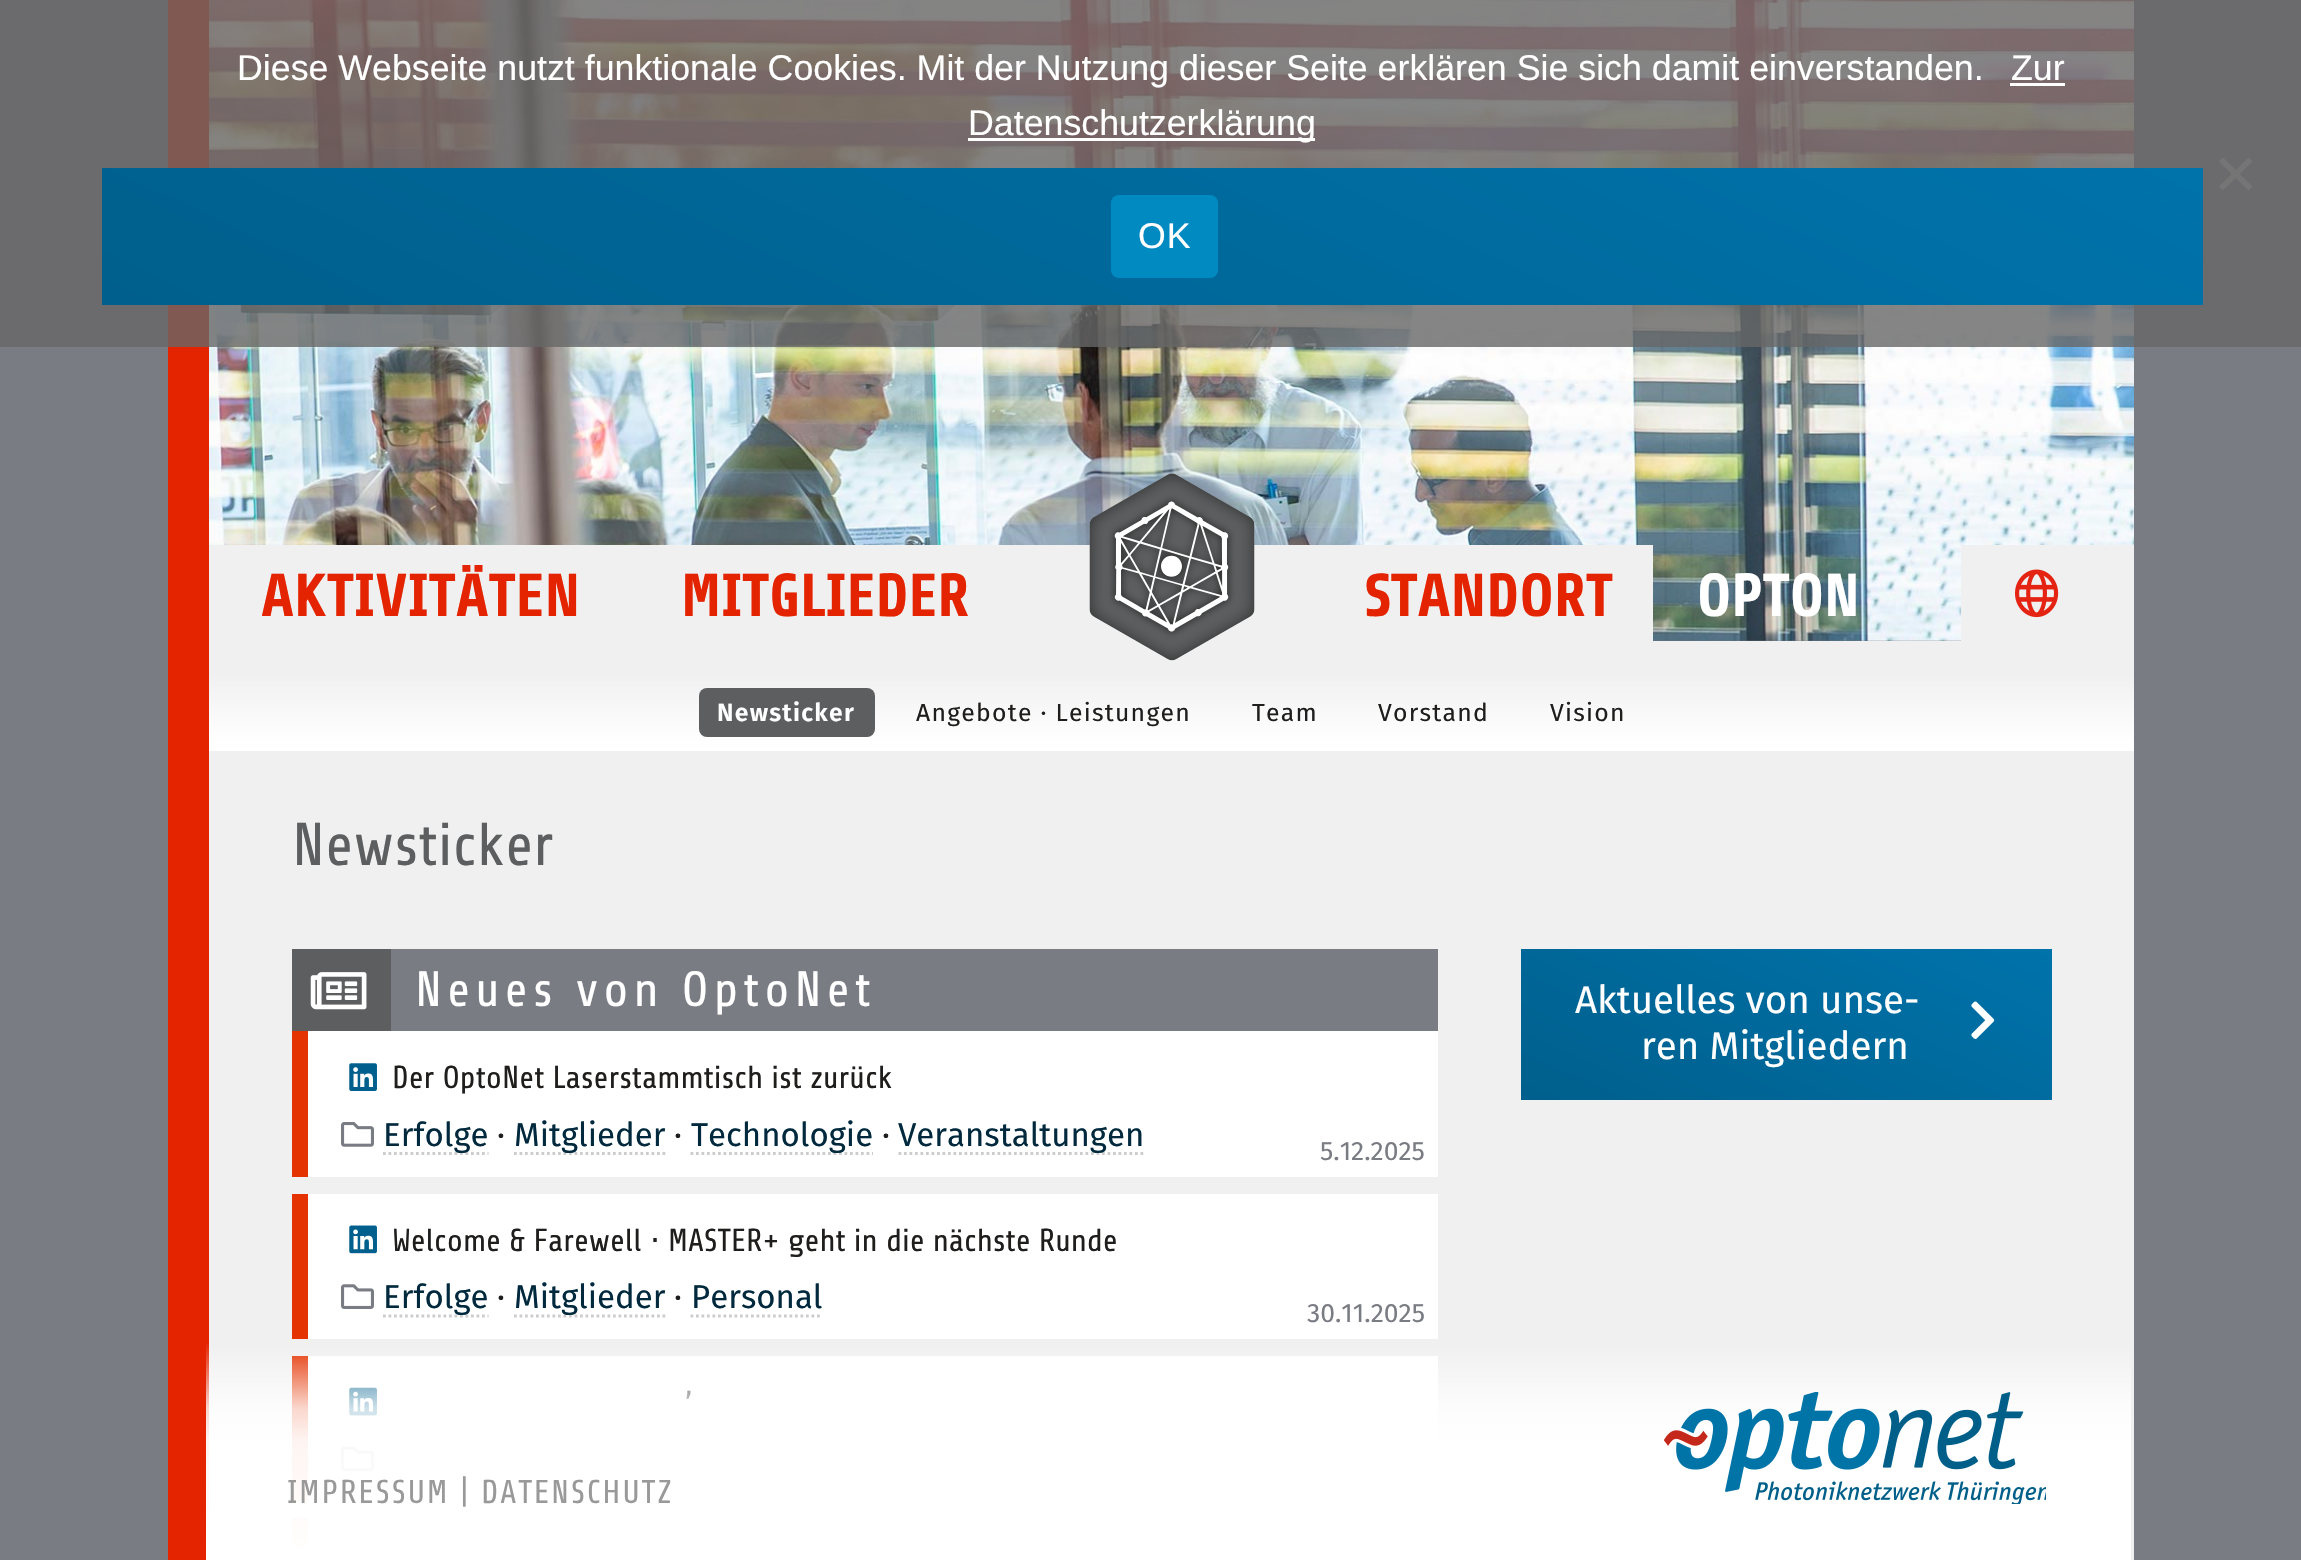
void draw(SkCanvas* canvas) {
    SkPaint paint;
    paint.setAntiAlias(true);
    auto spacedText = [&](const char* s, float x, float y, const SkFont& font, const SkPaint& ink, float letter, float word) {
        std::vector<SkGlyphID> glyphs(font.countText(s, strlen(s), SkTextEncoding::kUTF8));
        std::vector<float> xs(glyphs.size());
        font.textToGlyphs(s, strlen(s), SkTextEncoding::kUTF8, glyphs);
        font.getXPos(glyphs, xs, x);
        float extra = 0;
        for (size_t i = 0; i < glyphs.size(); i++) {
            xs[i] += extra;
            extra += letter + word * (glyphs[i] == font.unicharToGlyph(' '));
        }
        canvas->drawTextBlob(SkTextBlob::MakeFromPosHGlyphs(glyphs, xs, y, font), 0, 0, ink);
    };
    canvas->clear(0xFF797C83);
    paint.setColor(0xFFE42300);
    canvas->drawRect(SkRect::MakeXYWH(168, 0, 41, 1560), paint);
    canvas->drawImageRect(SkImages::DeferredFromEncodedData(SkData::MakeFromFileName("img1.png")), SkRect::MakeXYWH(209, 0, 1925, 641), SkSamplingOptions());
    paint.setColor(0xCC666666);
    canvas->drawRect(SkRect::MakeXYWH(0, 0, 2301, 347), paint);
    SkFont font1(fontMgr->matchFamilyStyle("Liberation Sans", SkFontStyle::Normal()), 35.75f);
    font1.setSubpixel(true);
    paint.setColor(0xFFFFFFFF);
    canvas->drawString("Diese Webseite nutzt funktionale Cookies. Mit der Nutzung dieser Seite erklären Sie sich damit einverstanden.", 237, 80, font1, paint);
    canvas->drawString("Zur", 2011, 80, font1, paint);
    canvas->drawRect(SkRect::MakeXYWH(2010, 83, 55, 3), paint);
    canvas->drawRect(SkRect::MakeXYWH(968, 138, 347, 3), paint);
    canvas->drawString("Datenschutzerklärung", 968, 135, font1, paint);
    paint.setColor(0xFF757576);
    canvas->drawPath(SkPathBuilder().moveTo(2248.5f, 157.5f).lineTo(2252.5f, 161.5f).lineTo(2223, 190.5f).lineTo(2219, 186.5f).close().detach(), paint);
    canvas->drawPath(SkPathBuilder().moveTo(2219, 161.5f).lineTo(2223, 157.5f).lineTo(2252.5f, 186.5f).lineTo(2248.5f, 190.5f).close().detach(), paint);
    {
        const SkColor colors[] = {0xFF005F8C, 0xFF0073AB};
        const float stops[] = {0, 1};
        const SkPoint ends[] = {{938, 695}, {1366, -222}};
        paint.setShader(SkGradientShader::MakeLinear(ends, colors, stops, 2, SkTileMode::kClamp));
        paint.setAlpha(255);
    }
    canvas->drawRect(SkRect::MakeXYWH(102, 168, 2101, 137), paint);
    paint.setShader(nullptr);
    paint.setColor(0xFF008AC2);
    canvas->drawRoundRect(SkRect::MakeXYWH(1111, 195, 107, 83), 8, 8, paint);
    paint.setColor(0xFFFFFFFF);
    spacedText("OK", 1138, 248, font1, paint, 1, 0);
    paint.setColor(0xFFF0F0F0);
    canvas->drawRect(SkRect::MakeXYWH(209, 545, 1444, 96), paint);
    SkFont font2(fontMgr->matchFamilyStyle("Share", SkFontStyle::Bold()), 60.5f);
    font2.setSubpixel(true);
    paint.setColor(0xFFE42300);
    canvas->drawString("AKTIVITÄTEN", 261, 616, font2, paint);
    canvas->drawString("MITGLIEDER", 681, 616, font2, paint);
    {
        const SkColor colors[] = {0xFFF0F0F0, 0xFFF8F8F8, 0xFFFFFFFF};
        const float stops[] = {0.31f, 0.62f, 0.93f};
        const SkPoint ends[] = {{1172, 641}, {1172, 751}};
        paint.setShader(SkGradientShader::MakeLinear(ends, colors, stops, 3, SkTileMode::kClamp));
        paint.setAlpha(255);
    }
    canvas->drawRect(SkRect::MakeXYWH(209, 641, 1925, 110), paint);
    canvas->drawImageRect(SkImages::DeferredFromEncodedData(SkData::MakeFromFileName("img2.png")), SkRect::MakeXYWH(1089, 473, 166, 188), SkSamplingOptions());
    paint.setShader(nullptr);
    paint.setColor(0xFFE42300);
    canvas->drawString("STANDORT", 1365, 616, font2, paint);
    paint.setColor(0xFFFFFFFF);
    canvas->drawString("OPTON", 1697, 616, font2, paint);
    paint.setColor(0xFFF0F0F0);
    canvas->drawRect(SkRect::MakeXYWH(1961, 545, 173, 96), paint);
    canvas->drawImageRect(SkImages::DeferredFromEncodedData(SkData::MakeFromFileName("img3.png")), SkRect::MakeXYWH(2015, 569, 44, 49), SkSamplingOptions());
    paint.setColor(0xFF5D5E5F);
    canvas->drawRoundRect(SkRect::MakeXYWH(699, 688, 176, 49), 8, 8, paint);
    SkFont font3(fontMgr->matchFamilyStyle("Fira Sans", SkFontStyle(600, SkFontStyle::kNormal_Width, SkFontStyle::kUpright_Slant)), 24.75f);
    font3.setSubpixel(true);
    paint.setColor(0xFFFFFFFF);
    spacedText("Newsticker", 717, 721, font3, paint, 1.25f, 0);
    SkFont font4(fontMgr->matchFamilyStyle("Fira Sans", SkFontStyle::Normal()), 24.75f);
    font4.setSubpixel(true);
    paint.setColor(0xFF1F1E1D);
    spacedText("Angebote · Leistungen", 916, 721, font4, paint, 1.25f, 0);
    spacedText("Team", 1252, 721, font4, paint, 1.25f, 0);
    spacedText("Vorstand", 1378, 721, font4, paint, 1.25f, 0);
    spacedText("Vision", 1550, 721, font4, paint, 1.25f, 0);
    paint.setColor(0xFFF0F0F0);
    canvas->drawRect(SkRect::MakeXYWH(209, 751, 1925, 809), paint);
    SkFont font5(fontMgr->matchFamilyStyle("Share", SkFontStyle::Normal()), 60.5f);
    font5.setSubpixel(true);
    paint.setColor(0xFF5D5E5F);
    canvas->drawString("Newsticker", 292, 865, font5, paint);
    paint.setColor(0xFF797C83);
    canvas->drawRect(SkRect::MakeXYWH(391, 949, 1047, 82), paint);
    paint.setColor(0xFF5D5E5F);
    canvas->drawRect(SkRect::MakeXYWH(292, 949, 99, 82), paint);
    canvas->drawImageRect(SkImages::DeferredFromEncodedData(SkData::MakeFromFileName("img4.png")), SkRect::MakeXYWH(310, 972, 57, 38), SkSamplingOptions());
    SkFont font6(fontMgr->matchFamilyStyle("Share", SkFontStyle::Normal()), 49.5f);
    font6.setSubpixel(true);
    paint.setColor(0xFFFFFFFF);
    spacedText("Neues von OptoNet", 415, 1006, font6, paint, 5, 0);
    canvas->drawRect(SkRect::MakeXYWH(308, 1031, 1130, 146), paint);
    paint.setColor(0xFFE43200);
    canvas->drawRect(SkRect::MakeXYWH(292, 1031, 16, 146), paint);
    canvas->drawImageRect(SkImages::DeferredFromEncodedData(SkData::MakeFromFileName("img5.png")), SkRect::MakeXYWH(349, 1063, 28, 28), SkSamplingOptions());
    SkFont font7(fontMgr->matchFamilyStyle("Share", SkFontStyle::Normal()), 31.7f);
    font7.setSubpixel(true);
    paint.setColor(0xFF1F1E1D);
    canvas->drawString("Der OptoNet Laserstammtisch ist zurück", 392, 1088, font7, paint);
    canvas->drawImageRect(SkImages::DeferredFromEncodedData(SkData::MakeFromFileName("img6.png")), SkRect::MakeXYWH(341, 1122, 33, 25), SkSamplingOptions());
    paint.setStyle(SkPaint::kStroke_Style);
    paint.setStrokeWidth(2.8f);
    paint.setColor(0xFFCCCCCC);
    paint.setPathEffect(SkDashPathEffect::Make({{2.75f, 2.75f}}, 0));
    canvas->drawPath(SkPathBuilder().moveTo(383, 1153.5f).lineTo(488.5f, 1153.5f).detach(), paint);
    paint.setPathEffect(nullptr);
    SkFont font8(fontMgr->matchFamilyStyle("Fira Sans", SkFontStyle::Normal()), 33);
    font8.setSubpixel(true);
    paint.setStyle(SkPaint::kFill_Style);
    paint.setColor(0xFF00293D);
    canvas->drawString("Erfolge", 383, 1146, font8, paint);
    paint.setColor(0xFF1F1E1D);
    canvas->drawString("·", 497, 1146, font8, paint);
    paint.setStyle(SkPaint::kStroke_Style);
    paint.setColor(0xFFCCCCCC);
    paint.setPathEffect(SkDashPathEffect::Make({{2.75f, 2.75f}}, 0));
    canvas->drawPath(SkPathBuilder().moveTo(514, 1153.5f).lineTo(665.5f, 1153.5f).detach(), paint);
    paint.setPathEffect(nullptr);
    paint.setStyle(SkPaint::kFill_Style);
    paint.setColor(0xFF00293D);
    canvas->drawString("Mitglieder", 514, 1146, font8, paint);
    paint.setColor(0xFF1F1E1D);
    canvas->drawString("·", 674, 1146, font8, paint);
    paint.setStyle(SkPaint::kStroke_Style);
    paint.setColor(0xFFCCCCCC);
    paint.setPathEffect(SkDashPathEffect::Make({{2.75f, 2.75f}}, 0));
    canvas->drawPath(SkPathBuilder().moveTo(690.5f, 1153.5f).lineTo(873, 1153.5f).detach(), paint);
    paint.setPathEffect(nullptr);
    paint.setStyle(SkPaint::kFill_Style);
    paint.setColor(0xFF00293D);
    canvas->drawString("Technologie", 691, 1146, font8, paint);
    paint.setColor(0xFF1F1E1D);
    canvas->drawString("·", 882, 1146, font8, paint);
    paint.setStyle(SkPaint::kStroke_Style);
    paint.setColor(0xFFCCCCCC);
    paint.setPathEffect(SkDashPathEffect::Make({{2.75f, 2.75f}}, 0));
    canvas->drawPath(SkPathBuilder().moveTo(898.5f, 1153.5f).lineTo(1144.5f, 1153.5f).detach(), paint);
    paint.setPathEffect(nullptr);
    paint.setStyle(SkPaint::kFill_Style);
    paint.setColor(0xFF00293D);
    canvas->drawString("Veranstaltungen", 898, 1146, font8, paint);
    SkFont font9(fontMgr->matchFamilyStyle("Fira Sans", SkFontStyle::Normal()), 26.5f);
    font9.setSubpixel(true);
    paint.setColor(0xFF797C83);
    canvas->drawString("5.12.2025", 1320, 1160, font9, paint);
    paint.setColor(0xFFFFFFFF);
    canvas->drawRect(SkRect::MakeXYWH(308, 1194, 1130, 145), paint);
    paint.setColor(0xFFE43200);
    canvas->drawRect(SkRect::MakeXYWH(292, 1194, 16, 145), paint);
    canvas->drawImageRect(SkImages::DeferredFromEncodedData(SkData::MakeFromFileName("img7.png")), SkRect::MakeXYWH(349, 1225, 28, 29), SkSamplingOptions());
    paint.setColor(0xFF1F1E1D);
    canvas->drawString("Welcome & Farewell", 392, 1251, font7, paint);
    SkFont font10(fontMgr->matchFamilyStyle("DejaVu Sans", SkFontStyle::Normal()), 31.7f);
    font10.setSubpixel(true);
    canvas->drawString("⋅", 650, 1251, font10, paint);
    canvas->drawString("MASTER+ geht in die nächste Runde", 668, 1251, font7, paint);
    canvas->drawImageRect(SkImages::DeferredFromEncodedData(SkData::MakeFromFileName("img8.png")), SkRect::MakeXYWH(341, 1284, 33, 25), SkSamplingOptions());
    paint.setStyle(SkPaint::kStroke_Style);
    paint.setColor(0xFFCCCCCC);
    paint.setPathEffect(SkDashPathEffect::Make({{2.75f, 2.75f}}, 0));
    canvas->drawPath(SkPathBuilder().moveTo(383, 1316).lineTo(488.5f, 1316).detach(), paint);
    paint.setPathEffect(nullptr);
    paint.setStyle(SkPaint::kFill_Style);
    paint.setColor(0xFF00293D);
    canvas->drawString("Erfolge", 383, 1308, font8, paint);
    paint.setColor(0xFF1F1E1D);
    canvas->drawString("·", 497, 1308, font8, paint);
    paint.setStyle(SkPaint::kStroke_Style);
    paint.setColor(0xFFCCCCCC);
    paint.setPathEffect(SkDashPathEffect::Make({{2.75f, 2.75f}}, 0));
    canvas->drawPath(SkPathBuilder().moveTo(514, 1316).lineTo(665.5f, 1316).detach(), paint);
    paint.setPathEffect(nullptr);
    paint.setStyle(SkPaint::kFill_Style);
    paint.setColor(0xFF00293D);
    canvas->drawString("Mitglieder", 514, 1308, font8, paint);
    paint.setColor(0xFF1F1E1D);
    canvas->drawString("·", 674, 1308, font8, paint);
    paint.setColor(0xFF00293D);
    canvas->drawString("Personal", 691, 1308, font8, paint);
    paint.setStyle(SkPaint::kStroke_Style);
    paint.setColor(0xFFCCCCCC);
    paint.setPathEffect(SkDashPathEffect::Make({{2.75f, 2.75f}}, 0));
    canvas->drawPath(SkPathBuilder().moveTo(690.5f, 1316).lineTo(822.5f, 1316).detach(), paint);
    paint.setPathEffect(nullptr);
    paint.setStyle(SkPaint::kFill_Style);
    paint.setColor(0xFF797C83);
    canvas->drawString("30.11.2025", 1307, 1322, font9, paint);
    paint.setColor(0xFFFFFFFF);
    canvas->drawRect(SkRect::MakeXYWH(308, 1356, 1130, 146), paint);
    paint.setColor(0xFFE43200);
    canvas->drawRect(SkRect::MakeXYWH(292, 1356, 16, 146), paint);
    canvas->drawImageRect(SkImages::DeferredFromEncodedData(SkData::MakeFromFileName("img9.png")), SkRect::MakeXYWH(349, 1387, 28, 29), SkSamplingOptions());
    paint.setColor(0xFF1F1E1D);
    canvas->drawString("’", 685, 1413, font7, paint);
    canvas->drawImageRect(SkImages::DeferredFromEncodedData(SkData::MakeFromFileName("img10.png")), SkRect::MakeXYWH(341, 1446, 33, 26), SkSamplingOptions());
    paint.setStyle(SkPaint::kStroke_Style);
    paint.setColor(0xFFCCCCCC);
    paint.setPathEffect(SkDashPathEffect::Make({{2.75f, 2.75f}}, 0));
    canvas->drawPath(SkPathBuilder().moveTo(383, 1478).lineTo(534.5f, 1478).detach(), paint);
    paint.setPathEffect(nullptr);
    paint.setStyle(SkPaint::kFill_Style);
    paint.setColor(0xFFFFFFFF);
    canvas->drawRect(SkRect::MakeXYWH(308, 1518, 1130, 30), paint);
    paint.setColor(0xFFE43200);
    canvas->drawRect(SkRect::MakeXYWH(292, 1518, 16, 30), paint);
    {
        const SkColor colors[] = {0xFF005F8C, 0xFF0073AB};
        const float stops[] = {0, 1};
        const SkPoint ends[] = {{1710, 1188}, {1862, 861}};
        paint.setShader(SkGradientShader::MakeLinear(ends, colors, stops, 2, SkTileMode::kClamp));
        paint.setAlpha(255);
    }
    canvas->drawRect(SkRect::MakeXYWH(1521, 949, 531, 151), paint);
    SkFont font11(fontMgr->matchFamilyStyle("Fira Sans", SkFontStyle::Normal()), 38.5f);
    font11.setSubpixel(true);
    paint.setShader(nullptr);
    paint.setColor(0xFFFFFFFF);
    canvas->drawString("Aktuelles von unse-", 1575, 1013, font11, paint);
    canvas->drawImageRect(SkImages::DeferredFromEncodedData(SkData::MakeFromFileName("img11.png")), SkRect::MakeXYWH(1971, 1001, 24, 38), SkSamplingOptions());
    canvas->drawString("ren Mitgliedern", 1641, 1059, font11, paint);
    {
        const SkColor colors[] = {0x00FFFFFF, 0xCCFFFFFF, 0xF2FFFFFF, 0xFFFFFFFF};
        const float stops[] = {0, 0.3f, 0.45f, 1};
        const SkPoint ends[] = {{1169, 1342}, {1169, 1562}};
        paint.setShader(SkGradientShader::MakeLinear(ends, colors, stops, 4, SkTileMode::kClamp));
        paint.setAlpha(255);
    }
    canvas->drawRect(SkRect::MakeXYWH(206, 1344, 1925, 216), paint);
    SkFont font12(fontMgr->matchFamilyStyle("Share", SkFontStyle::Normal()), 33);
    font12.setSubpixel(true);
    paint.setShader(nullptr);
    paint.setColor(0xFF999999);
    spacedText("IMPRESSUM | DATENSCHUTZ", 287, 1503, font12, paint, 1.65f, 0);
    canvas->drawImageRect(SkImages::DeferredFromEncodedData(SkData::MakeFromFileName("img12.png")), SkRect::MakeXYWH(1664, 1392, 382, 112), SkSamplingOptions());
}
